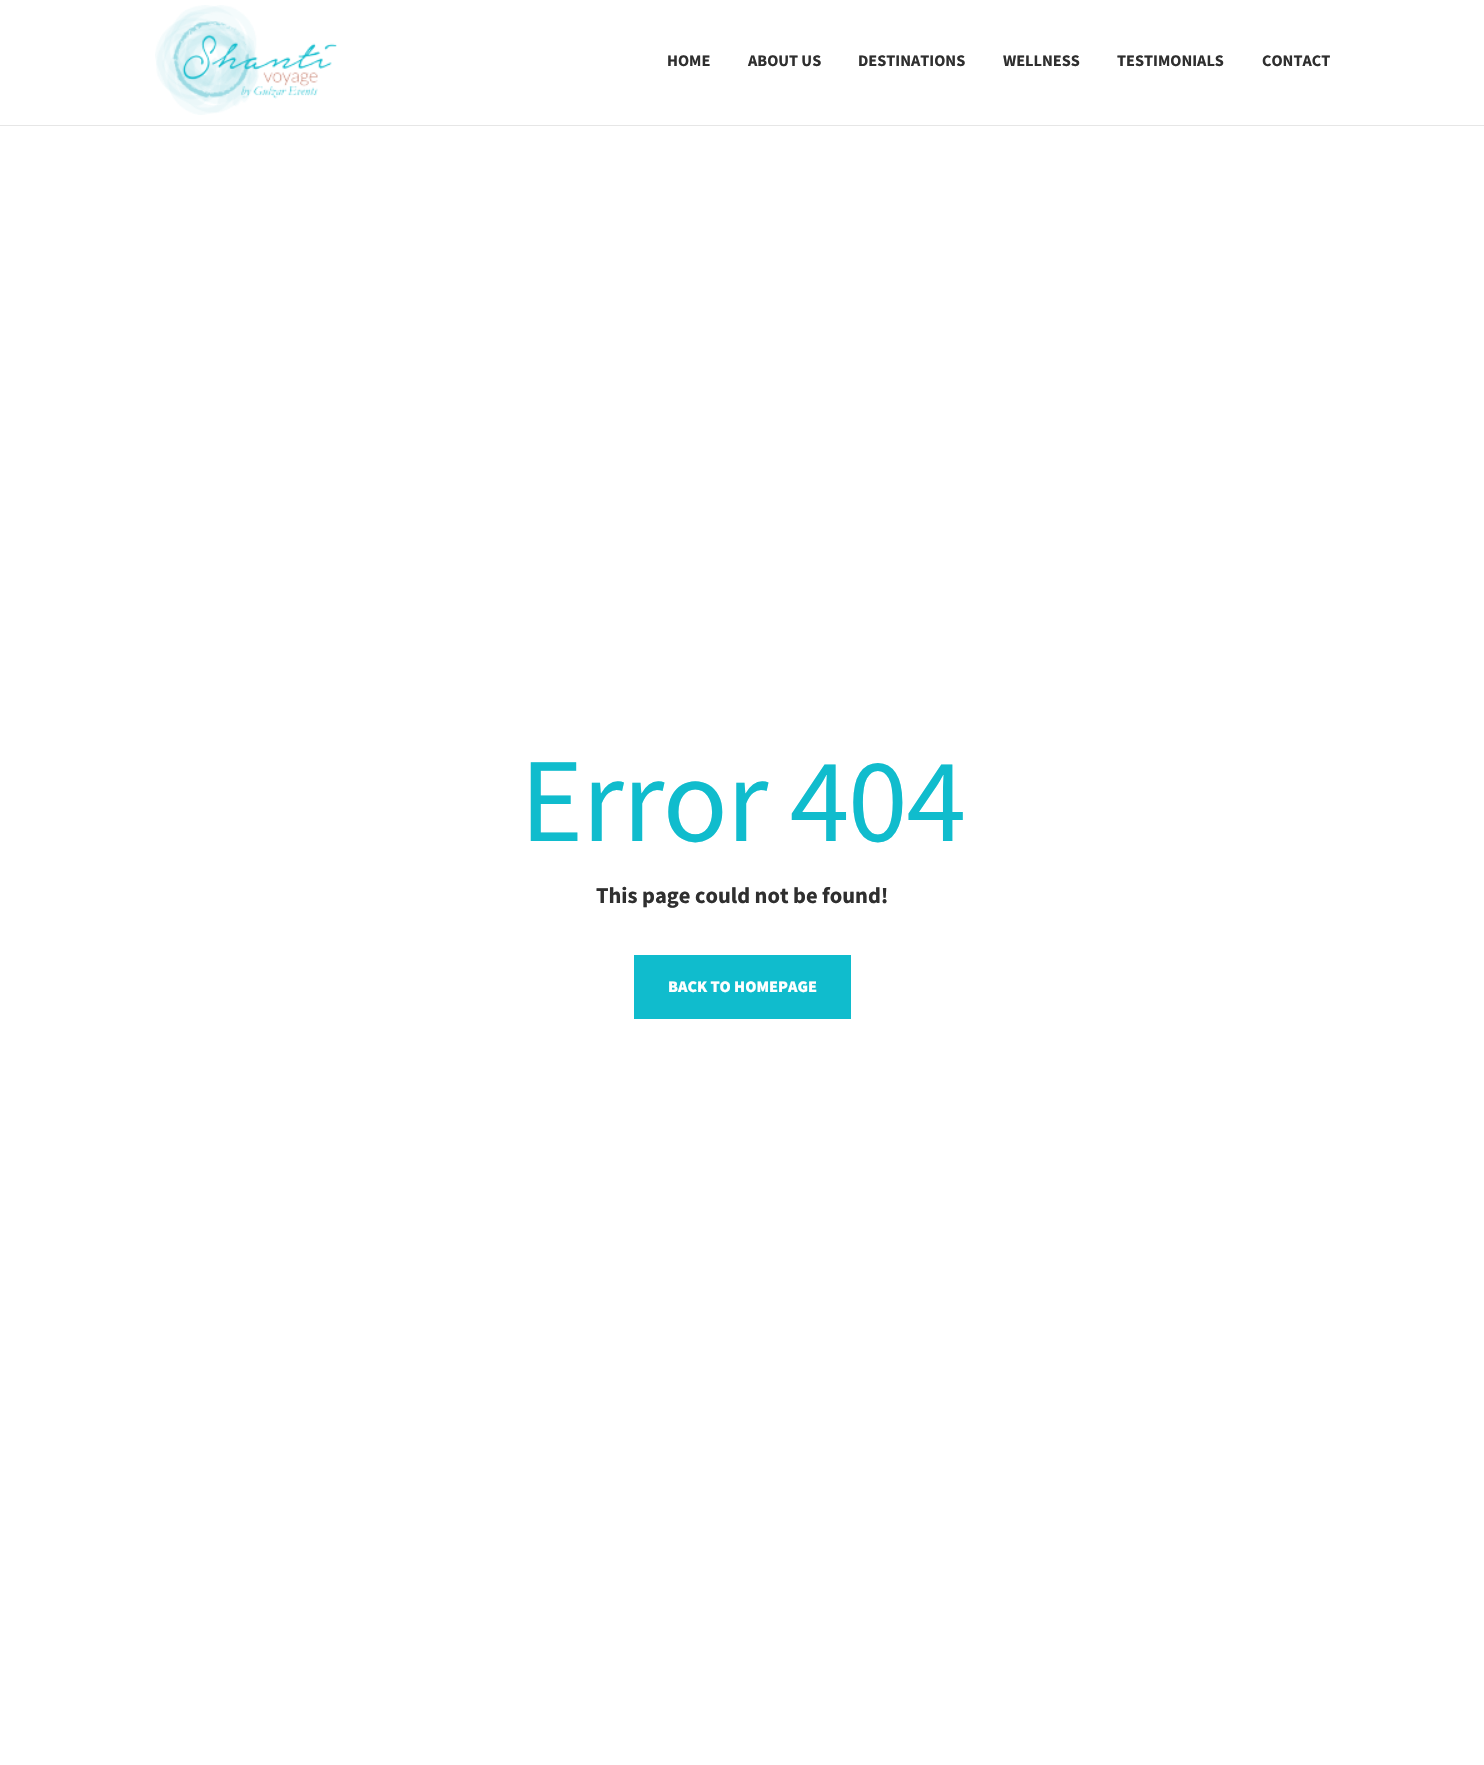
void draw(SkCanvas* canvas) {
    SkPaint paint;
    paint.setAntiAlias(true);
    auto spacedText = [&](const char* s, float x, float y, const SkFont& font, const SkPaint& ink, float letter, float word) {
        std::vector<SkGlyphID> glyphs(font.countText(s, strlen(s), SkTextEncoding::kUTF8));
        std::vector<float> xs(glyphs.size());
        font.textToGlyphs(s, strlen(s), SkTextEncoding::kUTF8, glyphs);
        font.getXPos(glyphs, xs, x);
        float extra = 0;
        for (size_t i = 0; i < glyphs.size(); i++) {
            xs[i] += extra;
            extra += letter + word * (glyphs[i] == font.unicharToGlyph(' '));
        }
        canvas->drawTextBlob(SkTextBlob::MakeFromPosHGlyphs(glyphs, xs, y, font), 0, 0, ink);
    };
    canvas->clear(0xFFFFFFFF);
    paint.setColor(0xFFE6E6E6);
    canvas->drawRect(SkRect::MakeXYWH(0, 125, 1484, 1), paint);
    canvas->drawImageRect(SkImages::DeferredFromEncodedData(SkData::MakeFromFileName("img1.png")), SkRect::MakeXYWH(155, 5, 182, 110), SkSamplingOptions());
    SkFont font1(fontMgr->matchFamilyStyle("Source Sans Pro", SkFontStyle::Bold()), 16.25f);
    font1.setSubpixel(true);
    paint.setColor(0xFF2F2F2F);
    canvas->drawString("HOME", 667, 66, font1, paint);
    canvas->drawString("ABOUT US", 748, 66, font1, paint);
    canvas->drawString("DESTINATIONS", 858, 66, font1, paint);
    canvas->drawString("WELLNESS", 1003, 66, font1, paint);
    canvas->drawString("TESTIMONIALS", 1117, 66, font1, paint);
    canvas->drawString("CONTACT", 1262, 66, font1, paint);
    SkFont font2(fontMgr->matchFamilyStyle("Source Sans Pro", SkFontStyle::Normal()), 120);
    font2.setSubpixel(true);
    paint.setColor(0xFF10BCCD);
    spacedText("Error 404", 520, 841, font2, paint, -1.25f, 0);
    SkFont font3(fontMgr->matchFamilyStyle("Source Sans Pro", SkFontStyle::Bold()), 22.5f);
    font3.setSubpixel(true);
    paint.setColor(0xFF2F2F2F);
    canvas->drawString("This page could not be found!", 596, 903, font3, paint);
    paint.setColor(0xFF10BCCD);
    canvas->drawRect(SkRect::MakeXYWH(634, 955, 217, 64), paint);
    SkFont font4(fontMgr->matchFamilyStyle("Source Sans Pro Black", SkFontStyle(900, SkFontStyle::kNormal_Width, SkFontStyle::kUpright_Slant)), 16.25f);
    font4.setSubpixel(true);
    paint.setColor(0xFFFFFFFF);
    canvas->drawString("BACK TO HOMEPAGE", 668, 992, font4, paint);
}
